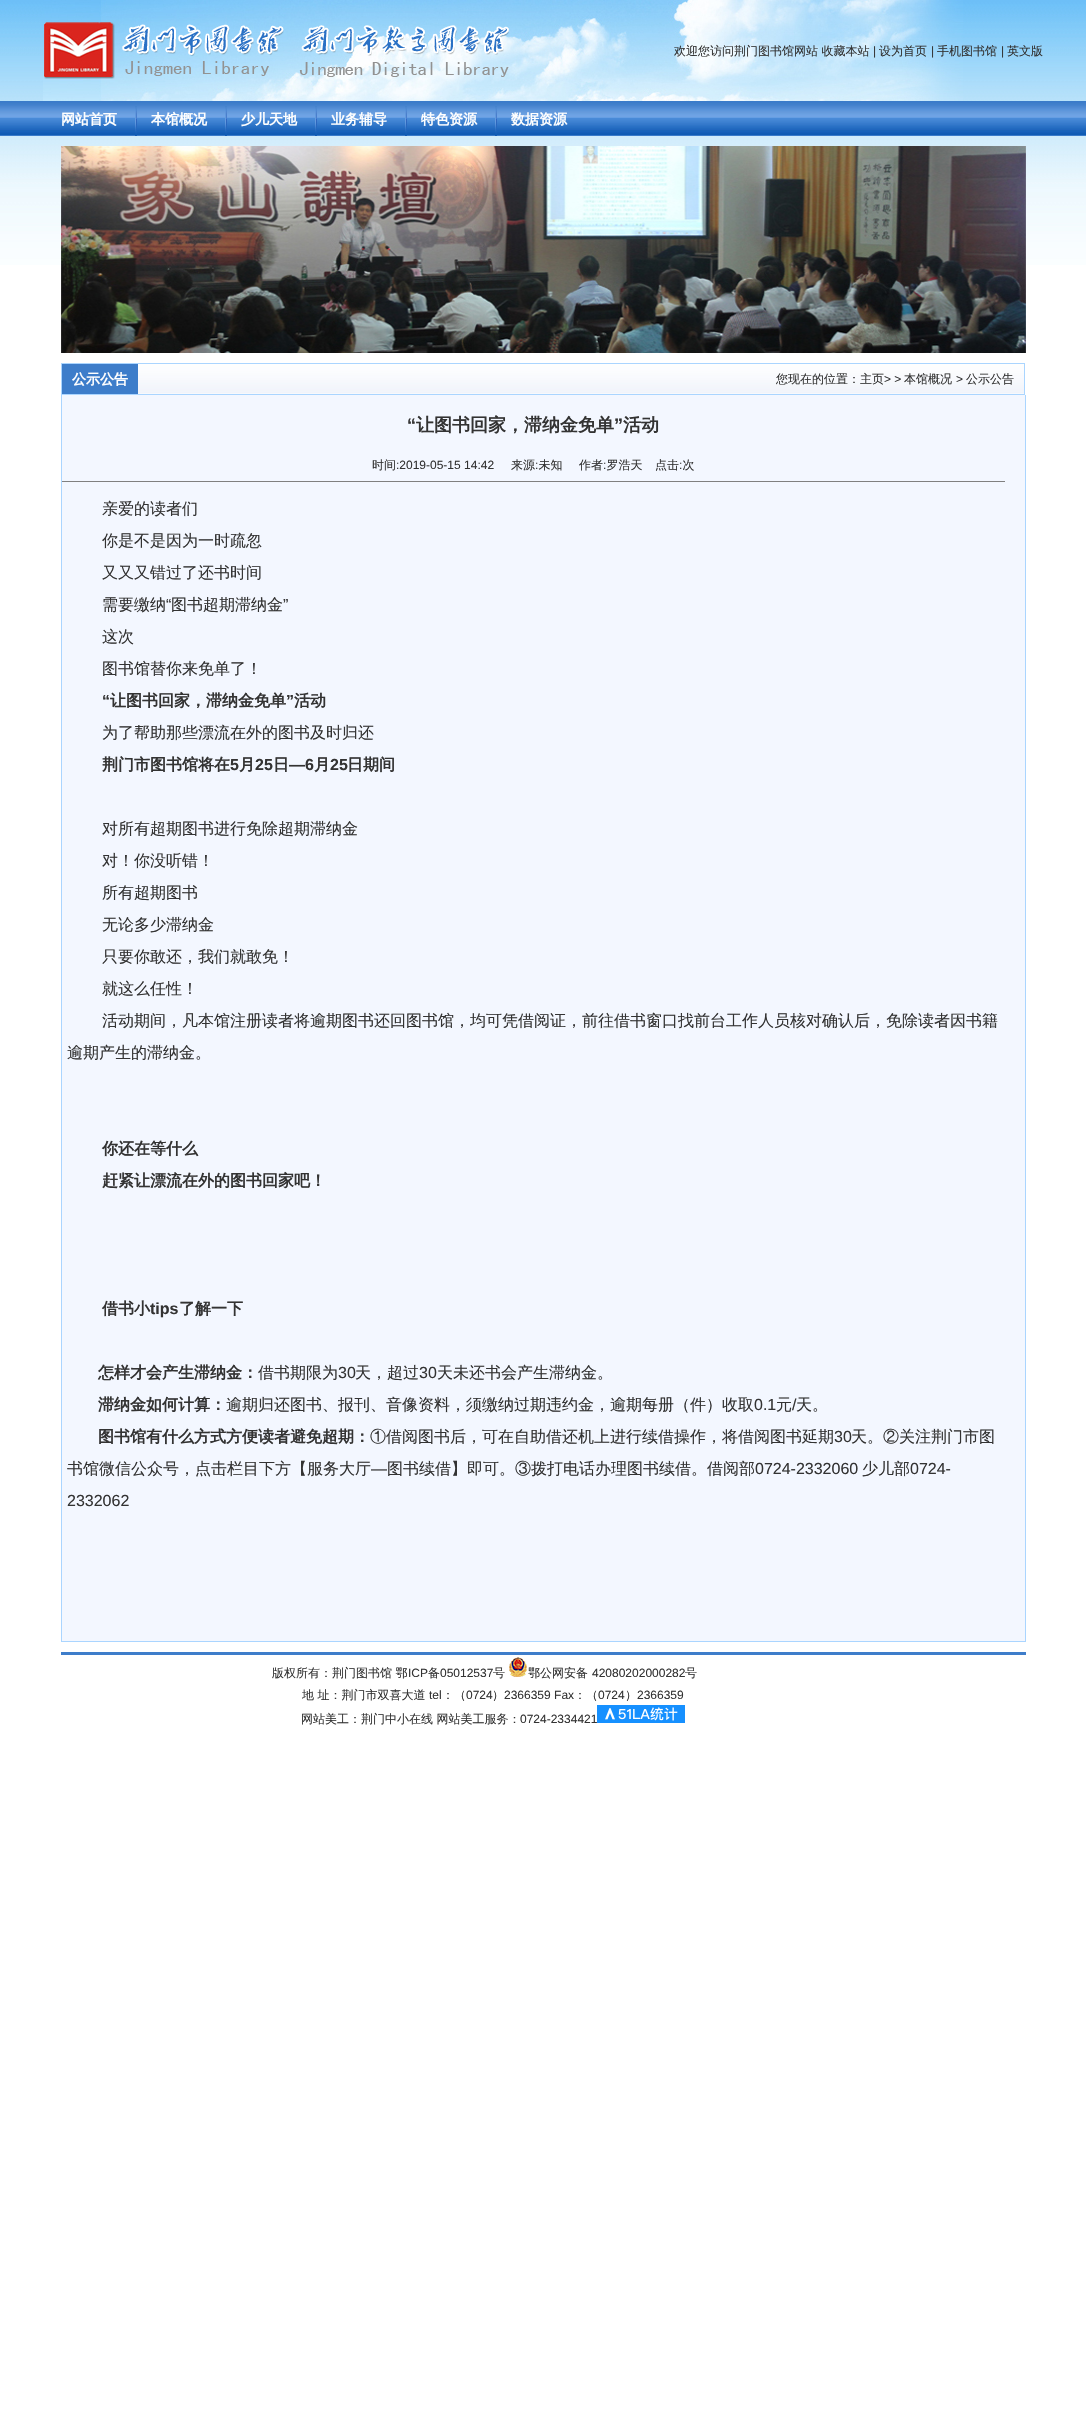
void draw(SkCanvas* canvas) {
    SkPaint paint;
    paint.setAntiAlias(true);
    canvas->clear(0xFFFFFFFF);
    canvas->drawImageRect(SkImages::DeferredFromEncodedData(SkData::MakeFromFileName("img1.png")), SkRect::MakeXYWH(0, 0, 1086, 265), SkSamplingOptions());
    canvas->drawImageRect(SkImages::DeferredFromEncodedData(SkData::MakeFromFileName("img2.png")), SkRect::MakeXYWH(43, 0, 920, 101), SkSamplingOptions());
    canvas->drawImageRect(SkImages::DeferredFromEncodedData(SkData::MakeFromFileName("img3.png")), SkRect::MakeXYWH(44, 22, 465, 57), SkSamplingOptions());
    SkFont font1(fontMgr->matchFamilyStyle("WenQuanYi Zen Hei", SkFontStyle(500, SkFontStyle::kNormal_Width, SkFontStyle::kUpright_Slant)), 12);
    font1.setSubpixel(true);
    paint.setColor(0xFF333333);
    canvas->drawString("欢迎您访问荆门图书馆网站 收藏本站", 674, 55, font1, paint);
    SkFont font2(fontMgr->matchFamilyStyle("Liberation Sans", SkFontStyle::Normal()), 12);
    font2.setSubpixel(true);
    canvas->drawString("|", 873, 55, font2, paint);
    canvas->drawString("设为首页", 879, 55, font1, paint);
    canvas->drawString("|", 931, 55, font2, paint);
    canvas->drawString("手机图书馆", 937, 55, font1, paint);
    canvas->drawString("|", 1001, 55, font2, paint);
    canvas->drawString("英文版", 1007, 55, font1, paint);
    canvas->drawImageRect(SkImages::DeferredFromEncodedData(SkData::MakeFromFileName("img4.png")), SkRect::MakeXYWH(0, 101, 1086, 35), SkSamplingOptions());
    SkFont font3(fontMgr->matchFamilyStyle("WenQuanYi Zen Hei", SkFontStyle::Bold()), 14);
    font3.setSubpixel(true);
    paint.setColor(0xFFFFFFFF);
    canvas->drawString("网站首页", 61, 124, font3, paint);
    canvas->drawImageRect(SkImages::DeferredFromEncodedData(SkData::MakeFromFileName("img5.png")), SkRect::MakeXYWH(135, 106, 2, 30), SkSamplingOptions());
    canvas->drawString("本馆概况", 151, 124, font3, paint);
    canvas->drawImageRect(SkImages::DeferredFromEncodedData(SkData::MakeFromFileName("img5.png")), SkRect::MakeXYWH(225, 106, 2, 30), SkSamplingOptions());
    canvas->drawString("少儿天地", 241, 124, font3, paint);
    canvas->drawImageRect(SkImages::DeferredFromEncodedData(SkData::MakeFromFileName("img5.png")), SkRect::MakeXYWH(315, 106, 2, 30), SkSamplingOptions());
    canvas->drawString("业务辅导", 331, 124, font3, paint);
    canvas->drawImageRect(SkImages::DeferredFromEncodedData(SkData::MakeFromFileName("img5.png")), SkRect::MakeXYWH(405, 106, 2, 30), SkSamplingOptions());
    canvas->drawString("特色资源", 421, 124, font3, paint);
    canvas->drawImageRect(SkImages::DeferredFromEncodedData(SkData::MakeFromFileName("img5.png")), SkRect::MakeXYWH(495, 106, 2, 30), SkSamplingOptions());
    canvas->drawString("数据资源", 511, 124, font3, paint);
    canvas->drawImageRect(SkImages::DeferredFromEncodedData(SkData::MakeFromFileName("img6.png")), SkRect::MakeXYWH(61, 146, 965, 207), SkSamplingOptions());
    canvas->drawImageRect(SkImages::DeferredFromEncodedData(SkData::MakeFromFileName("img7.png")), SkRect::MakeXYWH(138, 364, 886, 30), SkSamplingOptions());
    paint.setColor(0xFFAAD5FF);
    canvas->drawRect(SkRect::MakeXYWH(61, 363, 964, 1), paint);
    canvas->drawRect(SkRect::MakeXYWH(1024, 363, 1, 32), paint);
    canvas->drawRect(SkRect::MakeXYWH(61, 394, 964, 1), paint);
    canvas->drawRect(SkRect::MakeXYWH(61, 363, 1, 32), paint);
    paint.setColor(0xFF3D7DCA);
    canvas->drawRect(SkRect::MakeXYWH(62, 364, 76, 30), paint);
    paint.setColor(0xFFFFFFFF);
    canvas->drawString("公示公告", 72, 384, font3, paint);
    paint.setColor(0xFF333333);
    canvas->drawString("您现在的位置：主页", 776, 383, font1, paint);
    canvas->drawString("> >", 884, 383, font2, paint);
    canvas->drawString("本馆概况", 904, 383, font1, paint);
    canvas->drawString(">", 956, 383, font2, paint);
    canvas->drawString("公示公告", 966, 383, font1, paint);
    paint.setColor(0xFFF3F7FF);
    canvas->drawRect(SkRect::MakeXYWH(62, 395, 963, 1246), paint);
    paint.setColor(0xFFAAD5FF);
    canvas->drawRect(SkRect::MakeXYWH(1025, 395, 1, 1247), paint);
    canvas->drawRect(SkRect::MakeXYWH(61, 1641, 965, 1), paint);
    canvas->drawRect(SkRect::MakeXYWH(61, 395, 1, 1247), paint);
    SkFont font4(fontMgr->matchFamilyStyle("Liberation Sans", SkFontStyle::Bold()), 18);
    font4.setSubpixel(true);
    paint.setColor(0xFF333333);
    canvas->drawString("“", 407, 431, font4, paint);
    SkFont font5(fontMgr->matchFamilyStyle("WenQuanYi Zen Hei", SkFontStyle::Bold()), 18);
    font5.setSubpixel(true);
    canvas->drawString("让图书回家，滞纳金免单", 416, 431, font5, paint);
    canvas->drawString("”", 614, 431, font4, paint);
    canvas->drawString("活动", 623, 431, font5, paint);
    canvas->drawString("时间", 372, 469, font1, paint);
    canvas->drawString(":2019-05-15 14:42", 396, 469, font2, paint);
    canvas->drawString("来源 未知", 511, 469, font1, paint);
    canvas->drawString("作者 罗浩天", 579, 469, font1, paint);
    canvas->drawString("点击 次", 655, 469, font1, paint);
    canvas->drawString(":", 535, 469, font2, paint);
    canvas->drawString(":", 603, 469, font2, paint);
    canvas->drawString(":", 679, 469, font2, paint);
    paint.setColor(0xFF808080);
    canvas->drawRect(SkRect::MakeXYWH(62, 481, 943, 1), paint);
    SkFont font6(fontMgr->matchFamilyStyle("WenQuanYi Zen Hei", SkFontStyle(500, SkFontStyle::kNormal_Width, SkFontStyle::kUpright_Slant)), 16);
    font6.setSubpixel(true);
    paint.setColor(0xFF333333);
    canvas->drawString("亲爱的读者们", 102, 514, font6, paint);
    canvas->drawString("你是不是因为一时疏忽", 102, 546, font6, paint);
    canvas->drawString("又又又错过了还书时间", 102, 578, font6, paint);
    canvas->drawString("需要缴纳", 102, 610, font6, paint);
    SkFont font7(fontMgr->matchFamilyStyle("Liberation Sans", SkFontStyle::Normal()), 16);
    font7.setSubpixel(true);
    canvas->drawString("“", 166, 610, font7, paint);
    canvas->drawString("图书超期滞纳金", 171, 610, font6, paint);
    canvas->drawString("”", 283, 610, font7, paint);
    canvas->drawString("这次", 102, 642, font6, paint);
    canvas->drawString("图书馆替你来免单了！", 102, 674, font6, paint);
    SkFont font8(fontMgr->matchFamilyStyle("Liberation Sans", SkFontStyle::Bold()), 16);
    font8.setSubpixel(true);
    canvas->drawString("“", 102, 706, font8, paint);
    SkFont font9(fontMgr->matchFamilyStyle("WenQuanYi Zen Hei", SkFontStyle::Bold()), 16);
    font9.setSubpixel(true);
    canvas->drawString("让图书回家，滞纳金免单", 110, 706, font9, paint);
    canvas->drawString("”", 286, 706, font8, paint);
    canvas->drawString("活动", 294, 706, font9, paint);
    canvas->drawString("为了帮助那些漂流在外的图书及时归还", 102, 738, font6, paint);
    canvas->drawString("荆门市图书馆将在", 102, 770, font9, paint);
    canvas->drawString("5", 230, 770, font8, paint);
    canvas->drawString("月", 239, 770, font9, paint);
    canvas->drawString("25", 255, 770, font8, paint);
    canvas->drawString("日", 273, 770, font9, paint);
    canvas->drawString("—6", 289, 770, font8, paint);
    canvas->drawString("月", 314, 770, font9, paint);
    canvas->drawString("25", 330, 770, font8, paint);
    canvas->drawString("日期间", 347, 770, font9, paint);
    canvas->drawString("对所有超期图书进行免除超期滞纳金", 102, 834, font6, paint);
    canvas->drawString("对！你没听错！", 102, 866, font6, paint);
    canvas->drawString("所有超期图书", 102, 898, font6, paint);
    canvas->drawString("无论多少滞纳金", 102, 930, font6, paint);
    canvas->drawString("只要你敢还，我们就敢免！", 102, 962, font6, paint);
    canvas->drawString("就这么任性！", 102, 994, font6, paint);
    canvas->drawString("活动期间，凡本馆注册读者将逾期图书还回图书馆，均可凭借阅证，前往借书窗口找前台工作人员核对确认后，免除读者因书籍", 102, 1026, font6, paint);
    canvas->drawString("逾期产生的滞纳金。", 67, 1058, font6, paint);
    canvas->drawString("你还在等什么", 102, 1154, font9, paint);
    canvas->drawString("赶紧让漂流在外的图书回家吧！", 102, 1186, font9, paint);
    canvas->drawString("借书小", 102, 1314, font9, paint);
    canvas->drawString("tips", 150, 1314, font8, paint);
    canvas->drawString("了解一下", 179, 1314, font9, paint);
    canvas->drawString("怎样才会产生滞纳金：", 98, 1378, font9, paint);
    canvas->drawString("借书期限为", 258, 1378, font6, paint);
    canvas->drawString("30", 338, 1378, font7, paint);
    canvas->drawString("天，超过", 355, 1378, font6, paint);
    canvas->drawString("30", 419, 1378, font7, paint);
    canvas->drawString("天未还书会产生滞纳金。", 437, 1378, font6, paint);
    canvas->drawString("滞纳金如何计算：", 98, 1410, font9, paint);
    canvas->drawString("逾期归还图书、报刊、音像资料，须缴纳过期违约金，逾期每册（件）收取", 226, 1410, font6, paint);
    canvas->drawString("0.1", 754, 1410, font7, paint);
    canvas->drawString("元", 776, 1410, font6, paint);
    canvas->drawString("/", 792, 1410, font7, paint);
    canvas->drawString("天。", 796, 1410, font6, paint);
    canvas->drawString("图书馆有什么方式方便读者避免超期：", 98, 1442, font9, paint);
    canvas->drawString("①借阅图书后，可在自助借还机上进行续借操作，将借阅图书延期", 370, 1442, font6, paint);
    canvas->drawString("30", 834, 1442, font7, paint);
    canvas->drawString("天。②关注荆门市图", 851, 1442, font6, paint);
    canvas->drawString("书馆微信公众号，点击栏目下方【服务大厅", 67, 1474, font6, paint);
    canvas->drawString("—", 371, 1474, font7, paint);
    canvas->drawString("图书续借】即可。③拨打电话办理图书续借。借阅部", 387, 1474, font6, paint);
    canvas->drawString("0724-2332060", 755, 1474, font7, paint);
    canvas->drawString("少儿部", 862, 1474, font6, paint);
    canvas->drawString("0724-", 910, 1474, font7, paint);
    canvas->drawString("2332062", 67, 1506, font7, paint);
    paint.setColor(0xFF3E7DCA);
    canvas->drawRect(SkRect::MakeXYWH(61, 1652, 965, 3), paint);
    paint.setColor(0xFF333333);
    canvas->drawString("版权所有：荆门图书馆 鄂", 272, 1677, font1, paint);
    canvas->drawString("ICP", 408, 1677, font2, paint);
    canvas->drawString("备", 428, 1677, font1, paint);
    canvas->drawString("05012537", 440, 1677, font2, paint);
    canvas->drawString("号", 493, 1677, font1, paint);
    canvas->drawImageRect(SkImages::DeferredFromEncodedData(SkData::MakeFromFileName("img8.png")), SkRect::MakeXYWH(509, 1657, 18, 20), SkSamplingOptions());
    canvas->drawString("鄂公网安备", 528, 1677, font1, paint);
    canvas->drawString("42080202000282", 592, 1677, font2, paint);
    canvas->drawString("号", 685, 1677, font1, paint);
    canvas->drawString("地 址：荆门市双喜大道", 302, 1699, font1, paint);
    canvas->drawString("tel", 429, 1699, font2, paint);
    canvas->drawString("：（", 442, 1699, font1, paint);
    canvas->drawString("0724", 466, 1699, font2, paint);
    canvas->drawString("）", 492, 1699, font1, paint);
    canvas->drawString("2366359 Fax", 504, 1699, font2, paint);
    canvas->drawString("：（", 574, 1699, font1, paint);
    canvas->drawString("0724", 598, 1699, font2, paint);
    canvas->drawString("）", 625, 1699, font1, paint);
    canvas->drawString("2366359", 637, 1699, font2, paint);
    canvas->drawString("网站美工：荆门中小在线 网站美工服务：", 301, 1723, font1, paint);
    canvas->drawString("0724-2334421", 520, 1723, font2, paint);
    canvas->drawImageRect(SkImages::DeferredFromEncodedData(SkData::MakeFromFileName("img9.png")), SkRect::MakeXYWH(597, 1705, 88, 18), SkSamplingOptions());
}
